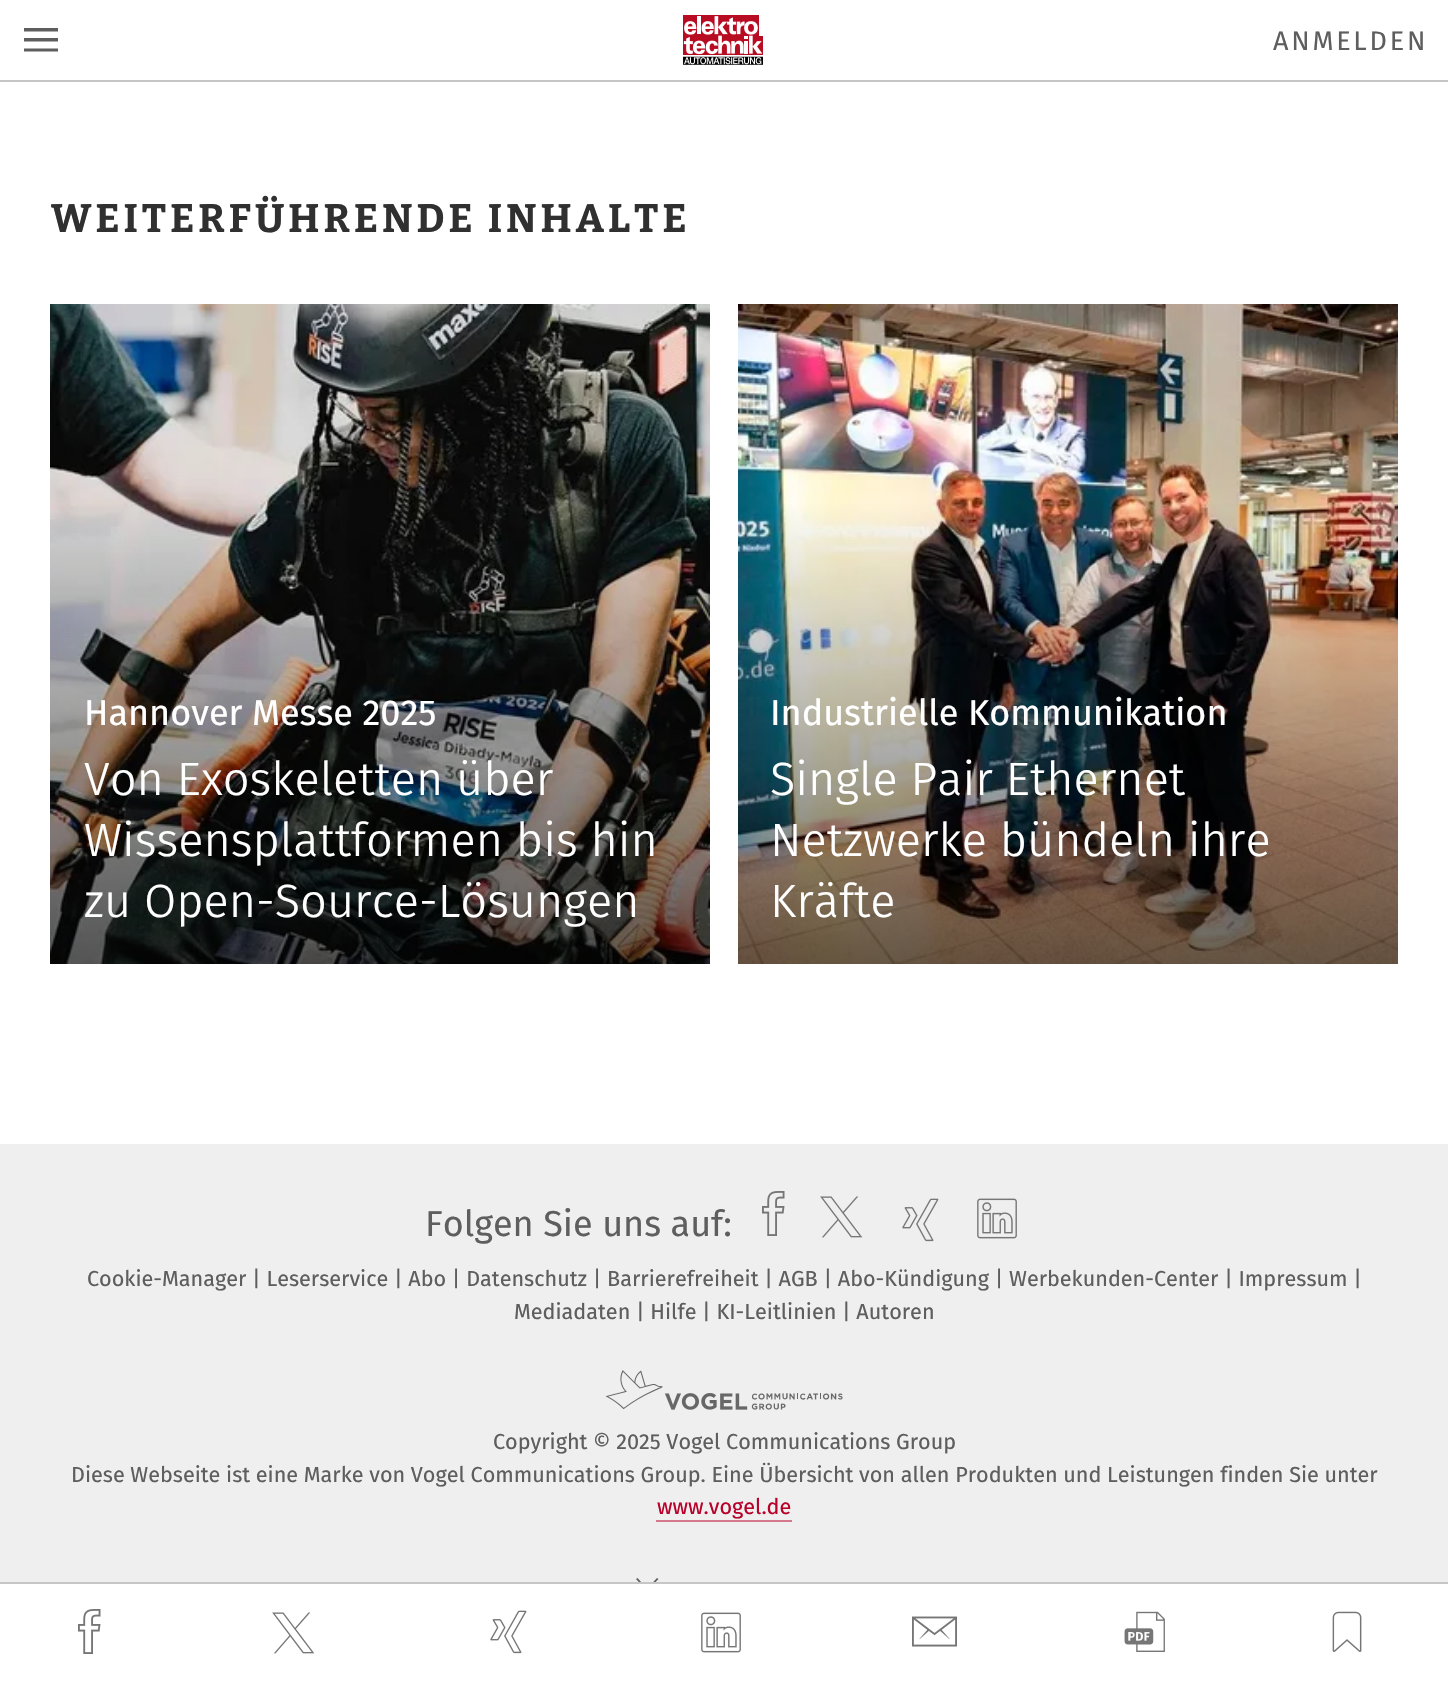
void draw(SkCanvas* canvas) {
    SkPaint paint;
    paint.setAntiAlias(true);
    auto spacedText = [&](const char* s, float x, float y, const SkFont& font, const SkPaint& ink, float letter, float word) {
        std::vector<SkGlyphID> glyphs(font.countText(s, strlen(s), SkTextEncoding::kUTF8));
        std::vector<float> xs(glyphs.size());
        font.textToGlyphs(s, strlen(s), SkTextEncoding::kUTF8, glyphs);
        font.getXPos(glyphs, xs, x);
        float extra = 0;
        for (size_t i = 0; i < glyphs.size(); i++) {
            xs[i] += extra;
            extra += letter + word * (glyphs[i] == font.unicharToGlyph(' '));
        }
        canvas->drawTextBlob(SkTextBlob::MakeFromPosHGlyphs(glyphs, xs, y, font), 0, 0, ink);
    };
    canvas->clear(0xFFFFFFFF);
    paint.setColor(0xFFC6C6C6);
    canvas->drawRect(SkRect::MakeXYWH(0, 80, 1448, 2), paint);
    paint.setColor(0xFF5E5E5E);
    canvas->drawPath(SkPathBuilder().moveTo(24, 41.5f).lineTo(24, 38).lineTo(58, 38).lineTo(58, 41.5f).close().moveTo(24, 31.5f).lineTo(24, 28).lineTo(58, 28).lineTo(58, 31.5f).close().moveTo(24, 51.5f).lineTo(24, 48.5f).lineTo(58, 48.5f).lineTo(58, 51.5f).close().detach(), paint);
    canvas->drawImageRect(SkImages::DeferredFromEncodedData(SkData::MakeFromFileName("img1.png")), SkRect::MakeXYWH(683, 15, 80, 50), SkSamplingOptions());
    SkFont font1(fontMgr->matchFamilyStyle("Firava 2", SkFontStyle::Normal()), 27);
    font1.setSubpixel(true);
    spacedText("ANMELDEN", 1273, 50, font1, paint, 2.75f, 0);
    SkFont font2(fontMgr->matchFamilyStyle("Bitter", SkFontStyle::Bold()), 39.6f);
    font2.setSubpixel(true);
    paint.setColor(0xFF303030);
    spacedText("WEITERFÜHRENDE INHALTE", 51, 232, font2, paint, 4, 0);
    canvas->drawImageRect(SkImages::DeferredFromEncodedData(SkData::MakeFromFileName("img2.png")), SkRect::MakeXYWH(50, 304, 660, 660), SkSamplingOptions());
    SkFont font3(fontMgr->matchFamilyStyle("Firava", SkFontStyle::Normal()), 36);
    font3.setSubpixel(true);
    paint.setColor(0xFFFFFFFF);
    canvas->drawString("Hannover Messe 2025", 84, 725, font3, paint);
    SkFont font4(fontMgr->matchFamilyStyle("Firava", SkFontStyle(300, SkFontStyle::kNormal_Width, SkFontStyle::kUpright_Slant)), 46.75f);
    font4.setSubpixel(true);
    canvas->drawString("Von Exoskeletten über", 84, 795, font4, paint);
    canvas->drawString("Wissensplattformen bis hin", 84, 856, font4, paint);
    canvas->drawString("zu Open-Source-Lösungen", 84, 917, font4, paint);
    canvas->drawImageRect(SkImages::DeferredFromEncodedData(SkData::MakeFromFileName("img3.png")), SkRect::MakeXYWH(738, 304, 660, 660), SkSamplingOptions());
    canvas->drawString("Industrielle Kommunikation", 770, 725, font3, paint);
    canvas->drawString("Single Pair Ethernet", 770, 795, font4, paint);
    canvas->drawString("Netzwerke bündeln ihre", 770, 856, font4, paint);
    canvas->drawString("Kräfte", 770, 917, font4, paint);
    paint.setColor(0xFFEFEFEF);
    canvas->drawRect(SkRect::MakeXYWH(0, 1144, 1448, 438), paint);
    paint.setColor(0xFF5E5E5E);
    canvas->drawPath(SkPathBuilder().moveTo(657, 1578).lineTo(658.5f, 1579).lineTo(647, 1591).lineTo(636, 1579).lineTo(637.5f, 1578).lineTo(647, 1588.5f).close().detach(), paint);
    paint.setColor(0xFFFFFFFF);
    canvas->drawRect(SkRect::MakeXYWH(640, 1584, 14, 7), paint);
    paint.setColor(0xFFC6C6C6);
    canvas->drawRect(SkRect::MakeXYWH(0, 1582, 1448, 2), paint);
    canvas->drawImageRect(SkImages::DeferredFromEncodedData(SkData::MakeFromFileName("img4.png")), SkRect::MakeXYWH(78, 1609, 23, 45), SkSamplingOptions());
    canvas->drawImageRect(SkImages::DeferredFromEncodedData(SkData::MakeFromFileName("img5.png")), SkRect::MakeXYWH(272, 1612, 43, 42), SkSamplingOptions());
    canvas->drawImageRect(SkImages::DeferredFromEncodedData(SkData::MakeFromFileName("img6.png")), SkRect::MakeXYWH(490, 1610, 37, 44), SkSamplingOptions());
    canvas->drawImageRect(SkImages::DeferredFromEncodedData(SkData::MakeFromFileName("img7.png")), SkRect::MakeXYWH(701, 1612, 40, 41), SkSamplingOptions());
    canvas->drawImageRect(SkImages::DeferredFromEncodedData(SkData::MakeFromFileName("img8.png")), SkRect::MakeXYWH(912, 1616, 45, 31), SkSamplingOptions());
    canvas->drawImageRect(SkImages::DeferredFromEncodedData(SkData::MakeFromFileName("img9.png")), SkRect::MakeXYWH(1124, 1611, 41, 41), SkSamplingOptions());
    canvas->drawImageRect(SkImages::DeferredFromEncodedData(SkData::MakeFromFileName("img10.png")), SkRect::MakeXYWH(1332, 1611, 30, 41), SkSamplingOptions());
    SkFont font5(fontMgr->matchFamilyStyle("Firava 2", SkFontStyle::Normal()), 36);
    font5.setSubpixel(true);
    paint.setColor(0xFF5E5E5E);
    canvas->drawString("Folgen Sie uns auf:", 425, 1236, font5, paint);
    canvas->drawImageRect(SkImages::DeferredFromEncodedData(SkData::MakeFromFileName("img11.png")), SkRect::MakeXYWH(762, 1191, 23, 45), SkSamplingOptions());
    canvas->drawImageRect(SkImages::DeferredFromEncodedData(SkData::MakeFromFileName("img12.png")), SkRect::MakeXYWH(820, 1196, 43, 42), SkSamplingOptions());
    canvas->drawImageRect(SkImages::DeferredFromEncodedData(SkData::MakeFromFileName("img13.png")), SkRect::MakeXYWH(902, 1198, 37, 44), SkSamplingOptions());
    canvas->drawImageRect(SkImages::DeferredFromEncodedData(SkData::MakeFromFileName("img14.png")), SkRect::MakeXYWH(977, 1198, 40, 41), SkSamplingOptions());
    SkFont font6(fontMgr->matchFamilyStyle("Firava", SkFontStyle::Normal()), 21.6f);
    font6.setSubpixel(true);
    canvas->drawString("Cookie-Manager | Leserservice | Abo | Datenschutz | Barrierefreiheit | AGB | Abo-Kündigung | Werbekunden-Center | Impressum |", 87, 1286, font6, paint);
    canvas->drawString("Mediadaten | Hilfe | KI-Leitlinien | Autoren", 514, 1319, font6, paint);
    canvas->drawImageRect(SkImages::DeferredFromEncodedData(SkData::MakeFromFileName("img15.png")), SkRect::MakeXYWH(605, 1370, 238, 40), SkSamplingOptions());
    canvas->drawString("Copyright © 2025 Vogel Communications Group", 493, 1449, font6, paint);
    canvas->drawString("Diese Webseite ist eine Marke von Vogel Communications Group. Eine Übersicht von allen Produkten und Leistungen finden Sie unter", 71, 1482, font6, paint);
    paint.setColor(0xFFB8022A);
    canvas->drawString("www.vogel.de", 657, 1514, font6, paint);
    paint.setColor(0xFFD4798D);
    canvas->drawRect(SkRect::MakeXYWH(656, 1520, 136, 2), paint);
}
